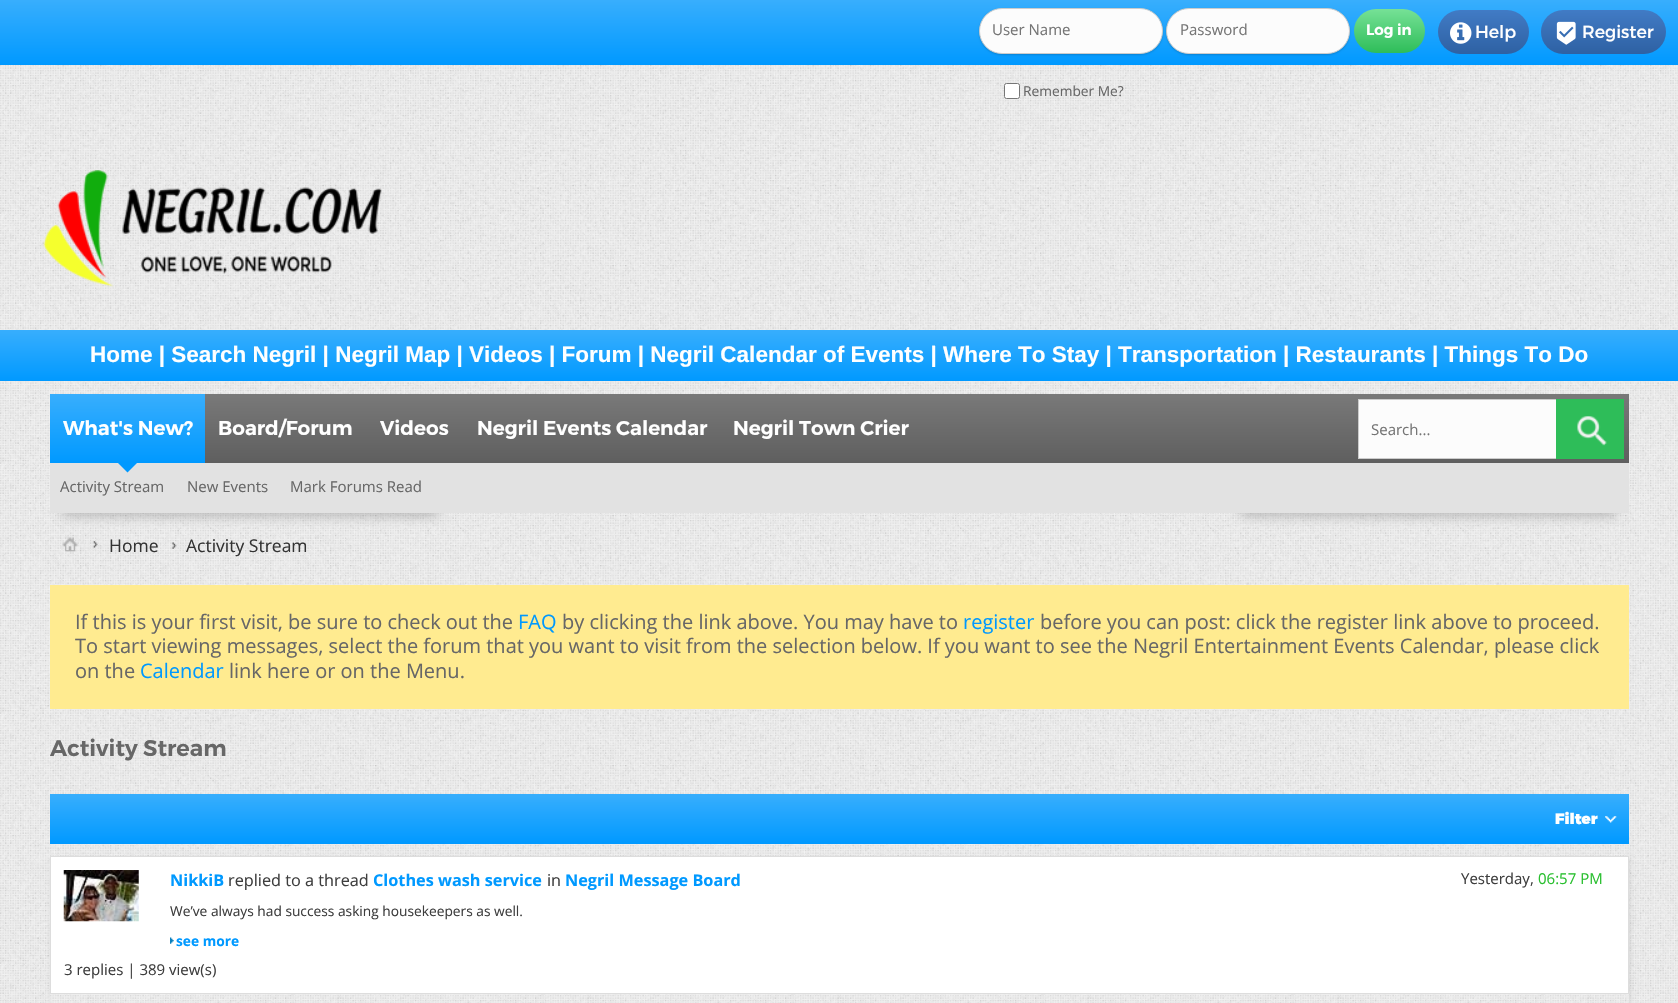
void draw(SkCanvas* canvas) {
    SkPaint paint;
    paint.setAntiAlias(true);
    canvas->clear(0xFFFFFFFF);
    canvas->drawImageRect(SkImages::DeferredFromEncodedData(SkData::MakeFromFileName("img1.png")), SkRect::MakeXYWH(0, 65, 1678, 938), SkSamplingOptions());
    {
        const SkColor colors[] = {0xFF0099FF, 0xFF38AEFD};
        const float stops[] = {0, 1};
        const SkPoint ends[] = {{839, 65}, {839, 0}};
        paint.setShader(SkGradientShader::MakeLinear(ends, colors, stops, 2, SkTileMode::kClamp));
        paint.setAlpha(255);
    }
    canvas->drawRect(SkRect::MakeXYWH(0, 0, 1678, 65), paint);
    paint.setShader(nullptr);
    paint.setColor(0x29000000);
    paint.setMaskFilter(SkMaskFilter::MakeBlur(kNormal_SkBlurStyle, 1));
    canvas->drawRoundRect(SkRect::MakeXYWH(979, 9, 184, 46), 23, 23, paint);
    paint.setMaskFilter(nullptr);
    paint.setColor(0xFFFCFCFC);
    canvas->drawRoundRect(SkRect::MakeXYWH(979.5f, 8.5f, 183, 45), 22.5f, 22.5f, paint);
    paint.setStyle(SkPaint::kStroke_Style);
    paint.setStrokeWidth(1);
    paint.setColor(0xFFCCCCCC);
    canvas->drawRoundRect(SkRect::MakeXYWH(979.5f, 8.5f, 183, 45), 22.5f, 22.5f, paint);
    SkFont font1(fontMgr->matchFamilyStyle("Open Sans", SkFontStyle::Normal()), 15);
    font1.setSubpixel(true);
    paint.setStyle(SkPaint::kFill_Style);
    paint.setColor(0xFF757575);
    canvas->drawString("User Name", 992, 35, font1, paint);
    paint.setColor(0x29000000);
    paint.setMaskFilter(SkMaskFilter::MakeBlur(kNormal_SkBlurStyle, 1));
    canvas->drawRoundRect(SkRect::MakeXYWH(1166, 9, 184, 46), 23, 23, paint);
    paint.setMaskFilter(nullptr);
    paint.setColor(0xFFFCFCFC);
    canvas->drawRoundRect(SkRect::MakeXYWH(1166.5f, 8.5f, 183, 45), 22.5f, 22.5f, paint);
    paint.setStyle(SkPaint::kStroke_Style);
    paint.setColor(0xFFCCCCCC);
    canvas->drawRoundRect(SkRect::MakeXYWH(1166.5f, 8.5f, 183, 45), 22.5f, 22.5f, paint);
    paint.setStyle(SkPaint::kFill_Style);
    paint.setColor(0xFF757575);
    canvas->drawString("Password", 1180, 35, font1, paint);
    {
        const SkColor colors[] = {0xFF2EBD59, 0xFF76E196};
        const float stops[] = {0, 1};
        const SkPoint ends[] = {{1389, 53}, {1389, 9}};
        paint.setShader(SkGradientShader::MakeLinear(ends, colors, stops, 2, SkTileMode::kClamp));
        paint.setAlpha(255);
    }
    canvas->drawRoundRect(SkRect::MakeXYWH(1354, 9, 71, 44), 22, 22, paint);
    SkFont font2(fontMgr->matchFamilyStyle("Montserrat", SkFontStyle(600, SkFontStyle::kNormal_Width, SkFontStyle::kUpright_Slant)), 15);
    font2.setSubpixel(true);
    paint.setShader(nullptr);
    paint.setColor(0xFFFFFFFF);
    canvas->drawString("Log in", 1366, 35, font2, paint);
    canvas->drawRoundRect(SkRect::MakeXYWH(1004.5f, 83.5f, 15, 15), 2, 2, paint);
    paint.setStyle(SkPaint::kStroke_Style);
    paint.setColor(0xFF767676);
    canvas->drawRoundRect(SkRect::MakeXYWH(1004.5f, 83.5f, 15, 15), 2, 2, paint);
    SkFont font3(fontMgr->matchFamilyStyle("Open Sans", SkFontStyle::Normal()), 13.75f);
    font3.setSubpixel(true);
    paint.setStyle(SkPaint::kFill_Style);
    paint.setColor(0xFF676767);
    canvas->drawString("Remember Me?", 1023, 96, font3, paint);
    {
        const SkColor colors[] = {0xFF2E61A3, 0xFF417BC5};
        const float stops[] = {0, 1};
        const SkPoint ends[] = {{1483, 54}, {1483, 10}};
        paint.setShader(SkGradientShader::MakeLinear(ends, colors, stops, 2, SkTileMode::kClamp));
        paint.setAlpha(255);
    }
    canvas->drawRoundRect(SkRect::MakeXYWH(1438, 10, 91, 44), 22, 22, paint);
    canvas->drawImageRect(SkImages::DeferredFromEncodedData(SkData::MakeFromFileName("img2.png")), SkRect::MakeXYWH(1450, 22, 22, 22), SkSamplingOptions());
    SkFont font4(fontMgr->matchFamilyStyle("Montserrat", SkFontStyle::Normal()), 17.5f);
    font4.setSubpixel(true);
    paint.setShader(nullptr);
    paint.setColor(0xFFFFFFFF);
    canvas->drawString("Help", 1475, 38, font4, paint);
    {
        const SkColor colors[] = {0xFF2E61A3, 0xFF417BC5};
        const float stops[] = {0, 1};
        const SkPoint ends[] = {{1604, 54}, {1604, 10}};
        paint.setShader(SkGradientShader::MakeLinear(ends, colors, stops, 2, SkTileMode::kClamp));
        paint.setAlpha(255);
    }
    canvas->drawRoundRect(SkRect::MakeXYWH(1541, 10, 125, 44), 22, 22, paint);
    canvas->drawImageRect(SkImages::DeferredFromEncodedData(SkData::MakeFromFileName("img3.png")), SkRect::MakeXYWH(1556, 21, 20, 24), SkSamplingOptions());
    paint.setShader(nullptr);
    paint.setColor(0xFFFFFFFF);
    canvas->drawString("Register", 1582, 38, font4, paint);
    canvas->drawImageRect(SkImages::DeferredFromEncodedData(SkData::MakeFromFileName("img4.png")), SkRect::MakeXYWH(43, 170, 339, 117), SkSamplingOptions());
    {
        const SkColor colors[] = {0xFF0099FF, 0xFF38AEFD};
        const float stops[] = {0, 1};
        const SkPoint ends[] = {{839, 381}, {839, 330}};
        paint.setShader(SkGradientShader::MakeLinear(ends, colors, stops, 2, SkTileMode::kClamp));
        paint.setAlpha(255);
    }
    canvas->drawRect(SkRect::MakeXYWH(0, 330, 1678, 51), paint);
    SkFont font5(fontMgr->matchFamilyStyle("Liberation Sans", SkFontStyle::Bold()), 22.5f);
    font5.setSubpixel(true);
    paint.setShader(nullptr);
    paint.setColor(0xFFFFFFFF);
    canvas->drawString("Home | Search Negril | Negril Map | Videos | Forum | Negril Calendar of Events | Where To Stay | Transportation | Restaurants | Things To Do", 90, 362, font5, paint);
    paint.setColor(0xFF777777);
    paint.setMaskFilter(SkMaskFilter::MakeBlur(kNormal_SkBlurStyle, 6.5f));
    canvas->drawRect(SkRect::MakeXYWH(63, 508, 375, 5), paint);
    paint.setMaskFilter(nullptr);
    paint.setMaskFilter(SkMaskFilter::MakeBlur(kNormal_SkBlurStyle, 6.5f));
    canvas->drawRect(SkRect::MakeXYWH(1241, 508, 375, 5), paint);
    paint.setMaskFilter(nullptr);
    paint.setColor(0xFFE2E2E2);
    canvas->drawRect(SkRect::MakeXYWH(50, 463, 1579, 50), paint);
    {
        const SkColor colors[] = {0xFF5F5F5F, 0xFF797979};
        const float stops[] = {0.01f, 1};
        const SkPoint ends[] = {{839, 463}, {839, 394}};
        paint.setShader(SkGradientShader::MakeLinear(ends, colors, stops, 2, SkTileMode::kClamp));
        paint.setAlpha(255);
    }
    canvas->drawRect(SkRect::MakeXYWH(921, 394, 708, 69), paint);
    {
        const SkColor colors[] = {0xFF0099FF, 0xFF38AEFD};
        const float stops[] = {0, 1};
        const SkPoint ends[] = {{128, 463}, {128, 394}};
        paint.setShader(SkGradientShader::MakeLinear(ends, colors, stops, 2, SkTileMode::kClamp));
        paint.setAlpha(255);
    }
    canvas->drawRect(SkRect::MakeXYWH(50, 394, 155, 69), paint);
    SkFont font6(fontMgr->matchFamilyStyle("Montserrat", SkFontStyle(600, SkFontStyle::kNormal_Width, SkFontStyle::kUpright_Slant)), 20);
    font6.setSubpixel(true);
    paint.setShader(nullptr);
    paint.setColor(0xFFFFFFFF);
    canvas->drawString("What's New?", 63, 435, font6, paint);
    paint.setColor(0xFF0099FF);
    canvas->drawPath(SkPathBuilder().moveTo(117.5f, 462.5f).lineTo(137.5f, 462.5f).lineTo(127.5f, 472.5f).close().detach(), paint);
    {
        const SkColor colors[] = {0xFF5F5F5F, 0xFF797979};
        const float stops[] = {0.01f, 1};
        const SkPoint ends[] = {{285, 463}, {285, 394}};
        paint.setShader(SkGradientShader::MakeLinear(ends, colors, stops, 2, SkTileMode::kClamp));
        paint.setAlpha(255);
    }
    canvas->drawRect(SkRect::MakeXYWH(205, 394, 160, 69), paint);
    paint.setShader(nullptr);
    paint.setColor(0xFFFFFFFF);
    canvas->drawString("Board/Forum", 218, 435, font6, paint);
    {
        const SkColor colors[] = {0xFF5F5F5F, 0xFF797979};
        const float stops[] = {0.01f, 1};
        const SkPoint ends[] = {{415, 463}, {415, 394}};
        paint.setShader(SkGradientShader::MakeLinear(ends, colors, stops, 2, SkTileMode::kClamp));
        paint.setAlpha(255);
    }
    canvas->drawRect(SkRect::MakeXYWH(365, 394, 100, 69), paint);
    paint.setShader(nullptr);
    paint.setColor(0xFFFFFFFF);
    canvas->drawString("Videos", 380, 435, font6, paint);
    {
        const SkColor colors[] = {0xFF5F5F5F, 0xFF797979};
        const float stops[] = {0.01f, 1};
        const SkPoint ends[] = {{593, 463}, {593, 394}};
        paint.setShader(SkGradientShader::MakeLinear(ends, colors, stops, 2, SkTileMode::kClamp));
        paint.setAlpha(255);
    }
    canvas->drawRect(SkRect::MakeXYWH(465, 394, 255, 69), paint);
    paint.setShader(nullptr);
    paint.setColor(0xFFFFFFFF);
    canvas->drawString("Negril Events Calendar", 477, 435, font6, paint);
    {
        const SkColor colors[] = {0xFF5F5F5F, 0xFF797979};
        const float stops[] = {0.01f, 1};
        const SkPoint ends[] = {{821, 463}, {821, 394}};
        paint.setShader(SkGradientShader::MakeLinear(ends, colors, stops, 2, SkTileMode::kClamp));
        paint.setAlpha(255);
    }
    canvas->drawRect(SkRect::MakeXYWH(720, 394, 201, 69), paint);
    paint.setShader(nullptr);
    paint.setColor(0xFFFFFFFF);
    canvas->drawString("Negril Town Crier", 733, 435, font6, paint);
    paint.setColor(0xFF676767);
    canvas->drawString("Activity Stream", 60, 492, font1, paint);
    canvas->drawString("New Events", 187, 492, font1, paint);
    canvas->drawString("Mark Forums Read", 290, 492, font1, paint);
    paint.setColor(0xFFFCFCFC);
    canvas->drawRect(SkRect::MakeXYWH(1359, 400, 197, 58), paint);
    paint.setStyle(SkPaint::kStroke_Style);
    paint.setColor(0xFFCCCCCC);
    canvas->drawRect(SkRect::MakeXYWH(1358.5f, 399.5f, 201, 59), paint);
    paint.setStyle(SkPaint::kFill_Style);
    paint.setColor(0xFF757575);
    canvas->drawString("Search...", 1371, 435, font1, paint);
    paint.setColor(0xFF2EBD59);
    canvas->drawRect(SkRect::MakeXYWH(1556, 399, 68, 60), paint);
    canvas->drawImageRect(SkImages::DeferredFromEncodedData(SkData::MakeFromFileName("img5.png")), SkRect::MakeXYWH(1577, 416, 30, 30), SkSamplingOptions());
    canvas->drawImageRect(SkImages::DeferredFromEncodedData(SkData::MakeFromFileName("img6.png")), SkRect::MakeXYWH(92, 541, 6, 7), SkSamplingOptions());
    canvas->drawImageRect(SkImages::DeferredFromEncodedData(SkData::MakeFromFileName("img7.png")), SkRect::MakeXYWH(62, 537, 16, 15), SkSamplingOptions());
    canvas->drawImageRect(SkImages::DeferredFromEncodedData(SkData::MakeFromFileName("img8.png")), SkRect::MakeXYWH(171, 542, 6, 7), SkSamplingOptions());
    SkFont font7(fontMgr->matchFamilyStyle("Open Sans", SkFontStyle::Normal()), 17.5f);
    font7.setSubpixel(true);
    paint.setColor(0xFF333333);
    canvas->drawString("Home", 109, 552, font7, paint);
    canvas->drawString("Activity Stream", 186, 552, font7, paint);
    paint.setColor(0xFFFFEB90);
    canvas->drawRect(SkRect::MakeXYWH(50, 585, 1579, 124), paint);
    SkFont font8(fontMgr->matchFamilyStyle("Open Sans", SkFontStyle::Normal()), 20);
    font8.setSubpixel(true);
    paint.setColor(0xFF676767);
    canvas->drawString("If this is your first visit, be sure to check out the", 75, 629, font8, paint);
    paint.setColor(0xFF0099FF);
    canvas->drawString("FAQ", 518, 629, font8, paint);
    paint.setColor(0xFF676767);
    canvas->drawString("by clicking the link above. You may have to", 562, 629, font8, paint);
    paint.setColor(0xFF0099FF);
    canvas->drawString("register", 963, 629, font8, paint);
    paint.setColor(0xFF676767);
    canvas->drawString("before you can post: click the register link above to proceed.", 1040, 629, font8, paint);
    canvas->drawString("To start viewing messages, select the forum that you want to visit from the selection below. If you want to see the Negril Entertainment Events Calendar, please click", 75, 653, font8, paint);
    canvas->drawString("on the", 75, 678, font8, paint);
    paint.setColor(0xFF0099FF);
    canvas->drawString("Calendar", 140, 678, font8, paint);
    paint.setColor(0xFF676767);
    canvas->drawString("link here or on the Menu.", 229, 678, font8, paint);
    SkFont font9(fontMgr->matchFamilyStyle("Montserrat", SkFontStyle(600, SkFontStyle::kNormal_Width, SkFontStyle::kUpright_Slant)), 22.5f);
    font9.setSubpixel(true);
    canvas->drawString("Activity Stream", 50, 756, font9, paint);
    {
        const SkColor colors[] = {0xFF0099FF, 0xFF38AEFD};
        const float stops[] = {0, 1};
        const SkPoint ends[] = {{839, 844}, {839, 794}};
        paint.setShader(SkGradientShader::MakeLinear(ends, colors, stops, 2, SkTileMode::kClamp));
        paint.setAlpha(255);
    }
    canvas->drawRect(SkRect::MakeXYWH(50, 794, 1579, 50), paint);
    canvas->drawImageRect(SkImages::DeferredFromEncodedData(SkData::MakeFromFileName("img9.png")), SkRect::MakeXYWH(1605, 816, 12, 7), SkSamplingOptions());
    SkFont font10(fontMgr->matchFamilyStyle("Montserrat", SkFontStyle(900, SkFontStyle::kNormal_Width, SkFontStyle::kUpright_Slant)), 15);
    font10.setSubpixel(true);
    paint.setShader(nullptr);
    paint.setColor(0xFFFFFFFF);
    canvas->drawString("Filter", 1555, 824, font10, paint);
    canvas->save();
    canvas->clipPath(SkPathBuilder(SkPathFillType::kEvenOdd).moveTo(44, 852).lineTo(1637, 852).lineTo(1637, 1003).lineTo(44, 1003).close().moveTo(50, 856).lineTo(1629, 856).lineTo(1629, 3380).lineTo(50, 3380).close().detach(), true);
    paint.setColor(0x1A000000);
    paint.setMaskFilter(SkMaskFilter::MakeBlur(kNormal_SkBlurStyle, 2));
    canvas->drawRect(SkRect::MakeXYWH(51, 859, 1579, 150), paint);
    paint.setMaskFilter(nullptr);
    canvas->restore();
    paint.setColor(0xFFFFFFFF);
    canvas->drawRect(SkRect::MakeXYWH(50.5f, 856.5f, 1578, 137), paint);
    paint.setStyle(SkPaint::kStroke_Style);
    paint.setColor(0xFFDDDDDD);
    canvas->drawRect(SkRect::MakeXYWH(50.5f, 856.5f, 1578, 137), paint);
    canvas->drawImageRect(SkImages::DeferredFromEncodedData(SkData::MakeFromFileName("img10.png")), SkRect::MakeXYWH(63, 870, 76, 52), SkSamplingOptions());
    SkFont font11(fontMgr->matchFamilyStyle("Open Sans", SkFontStyle::Bold()), 16.25f);
    font11.setSubpixel(true);
    paint.setStyle(SkPaint::kFill_Style);
    paint.setColor(0xFF0099FF);
    canvas->drawString("NikkiB", 170, 886, font11, paint);
    SkFont font12(fontMgr->matchFamilyStyle("Open Sans", SkFontStyle::Normal()), 16.25f);
    font12.setSubpixel(true);
    paint.setColor(0xFF3E3E3E);
    canvas->drawString("replied to a thread", 228, 886, font12, paint);
    paint.setColor(0xFF0099FF);
    canvas->drawString("Clothes wash service", 373, 886, font11, paint);
    paint.setColor(0xFF3E3E3E);
    canvas->drawString("in", 547, 886, font12, paint);
    paint.setColor(0xFF0099FF);
    canvas->drawString("Negril Message Board", 565, 886, font11, paint);
    paint.setColor(0xFF3E3E3E);
    canvas->drawString("Yesterday,", 1461, 884, font1, paint);
    paint.setColor(0xFF29BF2F);
    canvas->drawString("06:57 PM", 1538, 884, font1, paint);
    paint.setColor(0xFF3E3E3E);
    canvas->drawString("We’ve always had success asking housekeepers as well.", 170, 916, font3, paint);
    canvas->drawImageRect(SkImages::DeferredFromEncodedData(SkData::MakeFromFileName("img11.png")), SkRect::MakeXYWH(170, 937, 4, 7), SkSamplingOptions());
    SkFont font13(fontMgr->matchFamilyStyle("Open Sans", SkFontStyle::Bold()), 13.75f);
    font13.setSubpixel(true);
    paint.setColor(0xFF0099FF);
    canvas->drawString("see more", 176, 946, font13, paint);
    paint.setColor(0xFF3E3E3E);
    canvas->drawString("3 replies | 389 view(s)", 64, 975, font1, paint);
}
